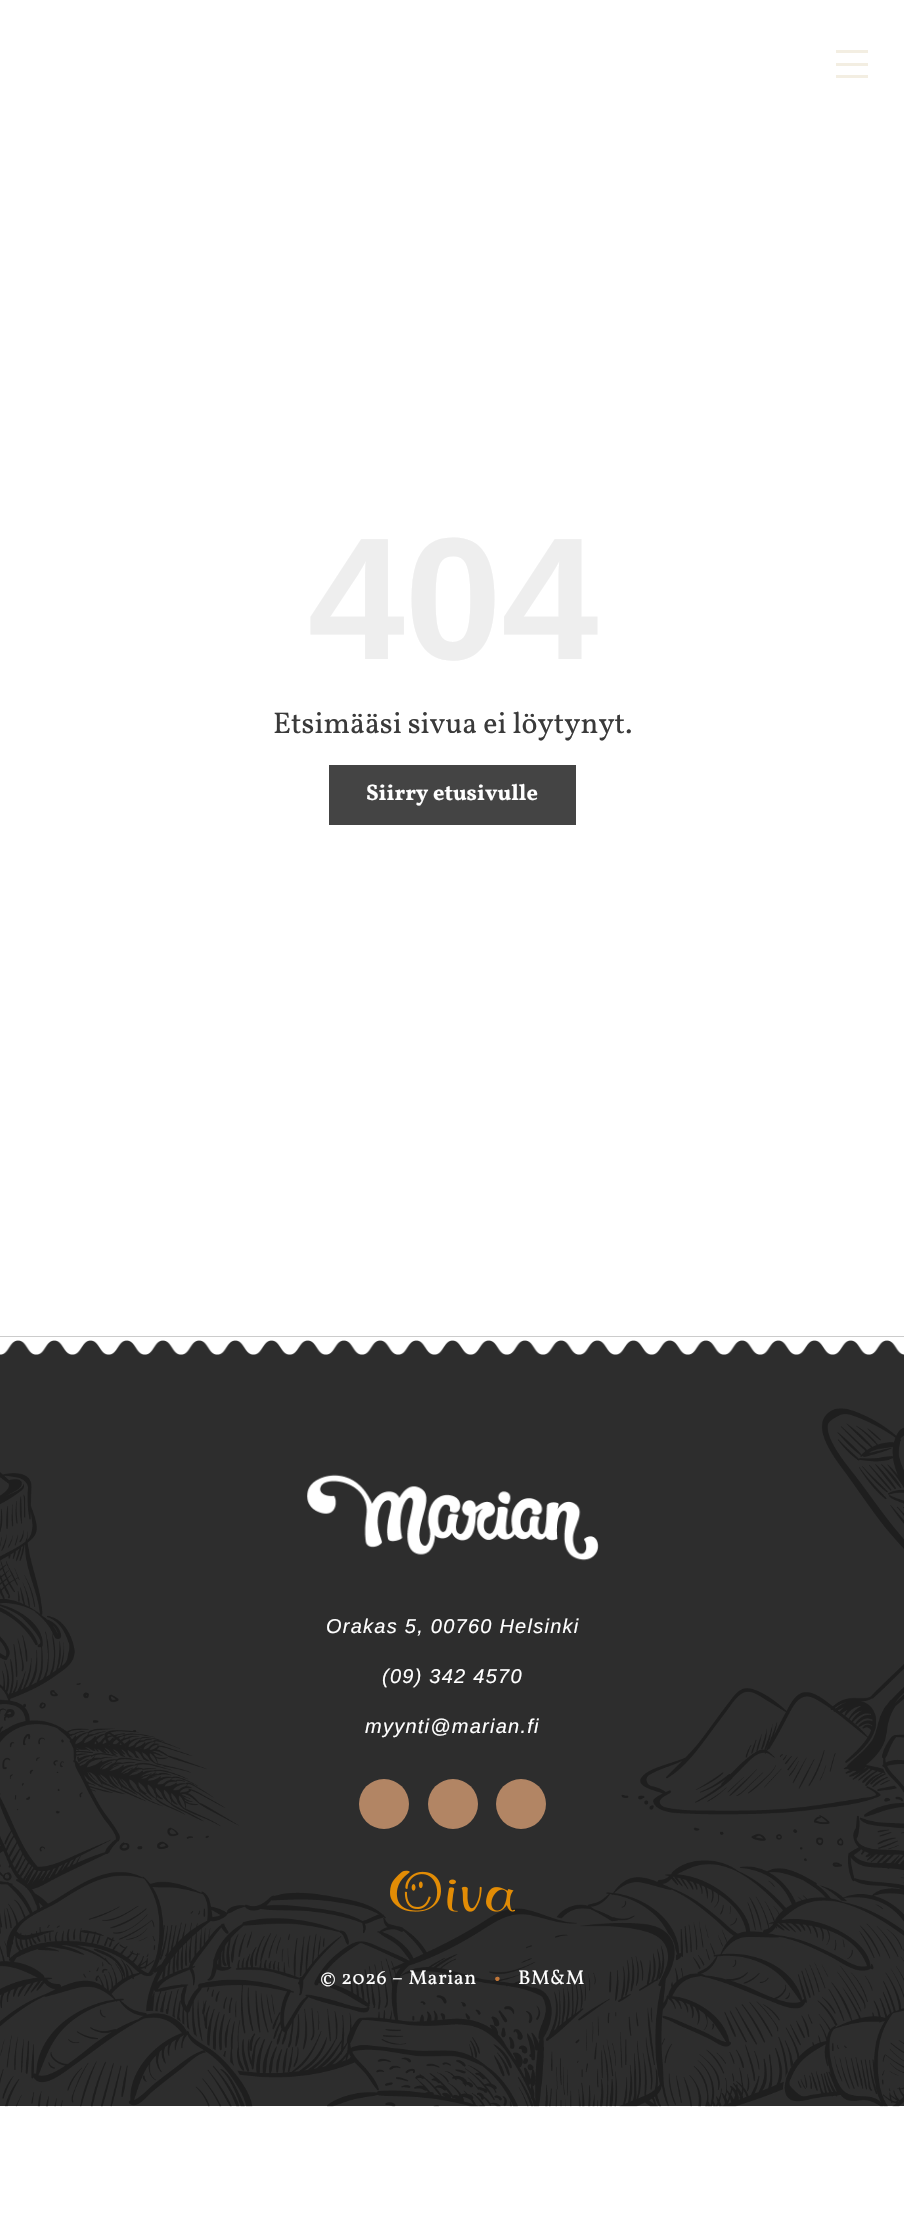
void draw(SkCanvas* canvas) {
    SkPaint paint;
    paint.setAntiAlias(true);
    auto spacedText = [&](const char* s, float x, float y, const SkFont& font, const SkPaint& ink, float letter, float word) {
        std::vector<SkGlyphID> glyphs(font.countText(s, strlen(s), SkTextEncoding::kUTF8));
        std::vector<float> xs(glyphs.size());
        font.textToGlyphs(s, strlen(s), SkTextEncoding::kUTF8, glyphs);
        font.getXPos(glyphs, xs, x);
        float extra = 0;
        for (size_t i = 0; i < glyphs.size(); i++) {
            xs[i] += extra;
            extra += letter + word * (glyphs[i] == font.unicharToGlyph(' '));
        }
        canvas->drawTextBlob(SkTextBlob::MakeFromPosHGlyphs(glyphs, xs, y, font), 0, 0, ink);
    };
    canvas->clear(0xFFFFFFFF);
    paint.setColor(0xFFF3EEE2);
    canvas->drawRect(SkRect::MakeXYWH(836, 50, 32, 3), paint);
    canvas->drawRect(SkRect::MakeXYWH(836, 63, 32, 3), paint);
    canvas->drawRect(SkRect::MakeXYWH(836, 75, 32, 3), paint);
    SkFont font1(fontMgr->matchFamilyStyle("Liberation Sans", SkFontStyle::Bold()), 174);
    font1.setSubpixel(true);
    paint.setColor(0xFFEEEEEE);
    canvas->drawString("404", 308, 659, font1, paint);
    SkFont font2(fontMgr->matchFamilyStyle("Vollkorn", SkFontStyle::Normal()), 30);
    font2.setSubpixel(true);
    paint.setColor(0xFF3A3A3A);
    canvas->drawString("Etsimääsi sivua ei löytynyt.", 273, 733, font2, paint);
    paint.setColor(0xFF444444);
    canvas->drawRect(SkRect::MakeXYWH(329, 765, 247, 60), paint);
    SkFont font3(fontMgr->matchFamilyStyle("Vollkorn", SkFontStyle::Bold()), 22.5f);
    font3.setSubpixel(true);
    paint.setColor(0xFFFFFFFF);
    canvas->drawString("Siirry etusivulle", 366, 800, font3, paint);
    paint.setColor(0xFF2D2D2D);
    canvas->drawRect(SkRect::MakeXYWH(0, 1336, 904, 770), paint);
    canvas->drawImageRect(SkImages::DeferredFromEncodedData(SkData::MakeFromFileName("img1.png")), SkRect::MakeXYWH(0, 1336, 904, 19), SkSamplingOptions());
    canvas->drawImageRect(SkImages::DeferredFromEncodedData(SkData::MakeFromFileName("img2.png")), SkRect::MakeXYWH(0, 1408, 904, 699), SkSamplingOptions());
    canvas->drawImageRect(SkImages::DeferredFromEncodedData(SkData::MakeFromFileName("img3.png")), SkRect::MakeXYWH(307, 1474, 292, 87), SkSamplingOptions());
    SkFont font4(fontMgr->matchFamilyStyle("Liberation Sans", SkFontStyle::Italic()), 20);
    font4.setSubpixel(true);
    paint.setColor(0xFFFFFFFF);
    spacedText("Orakas 5, 00760 Helsinki", 326, 1633, font4, paint, 1.25f, 0);
    spacedText("(09) 342 4570", 382, 1683, font4, paint, 1.25f, 0);
    spacedText("myynti@marian.fi", 365, 1733, font4, paint, 1.25f, 0);
    paint.setColor(0xFFB28564);
    canvas->drawCircle(384, 1804, 25, paint);
    canvas->drawCircle(453, 1804, 25, paint);
    canvas->drawCircle(521, 1804, 25, paint);
    canvas->drawImageRect(SkImages::DeferredFromEncodedData(SkData::MakeFromFileName("img4.png")), SkRect::MakeXYWH(390, 1870, 125, 42), SkSamplingOptions());
    SkFont font5(fontMgr->matchFamilyStyle("Vollkorn", SkFontStyle::Normal()), 20);
    font5.setSubpixel(true);
    paint.setColor(0xFFFFFFFF);
    spacedText("© 2026 – Marian", 320, 1984, font5, paint, 0.6f, 0);
    paint.setColor(0xFFC17638);
    spacedText("•", 494, 1984, font5, paint, 0.6f, 0);
    paint.setColor(0xFFFFFFFF);
    spacedText("BM&M", 518, 1984, font5, paint, 0.6f, 0);
}
